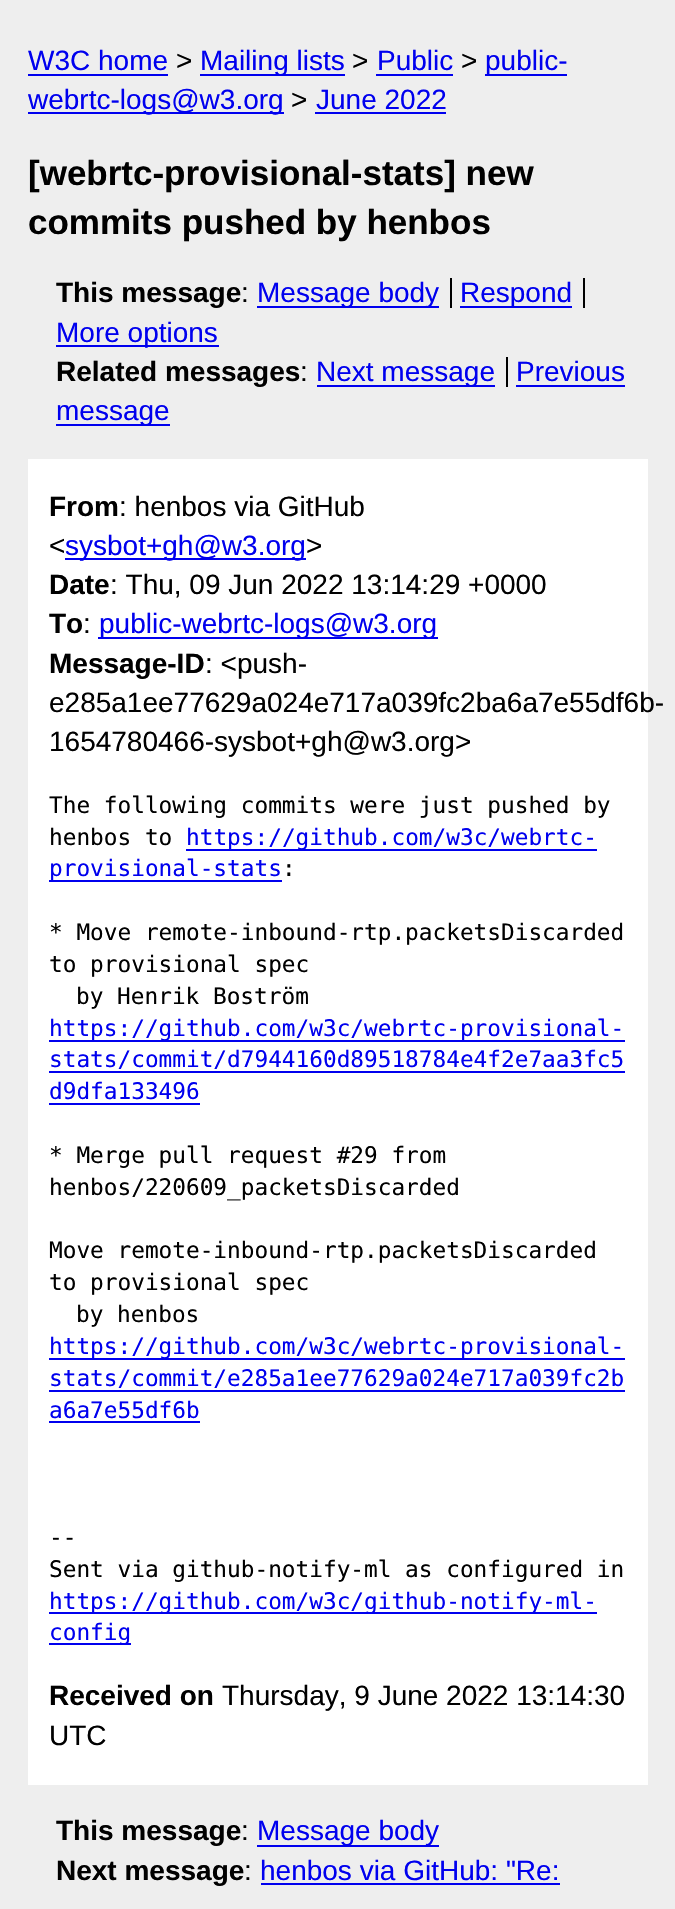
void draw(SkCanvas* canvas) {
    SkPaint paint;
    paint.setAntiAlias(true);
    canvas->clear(0xFFEEEEEE);
    SkFont font1(fontMgr->matchFamilyStyle("Liberation Sans", SkFontStyle::Normal()), 28);
    font1.setSubpixel(true);
    paint.setColor(0xFF0000EE);
    canvas->drawString("W3C home", 28, 70, font1, paint);
    canvas->drawRect(SkRect::MakeXYWH(28, 74, 140, 2), paint);
    paint.setColor(0xFF000000);
    canvas->drawString(">", 176, 70, font1, paint);
    paint.setColor(0xFF0000EE);
    canvas->drawRect(SkRect::MakeXYWH(200, 74, 145, 2), paint);
    canvas->drawString("Mailing lists", 200, 70, font1, paint);
    paint.setColor(0xFF000000);
    canvas->drawString(">", 352, 70, font1, paint);
    paint.setColor(0xFF0000EE);
    canvas->drawString("Public", 377, 70, font1, paint);
    canvas->drawRect(SkRect::MakeXYWH(376, 74, 77, 2), paint);
    paint.setColor(0xFF000000);
    canvas->drawString(">", 461, 70, font1, paint);
    paint.setColor(0xFF0000EE);
    canvas->drawRect(SkRect::MakeXYWH(485, 74, 82, 2), paint);
    canvas->drawString("public-", 485, 70, font1, paint);
    canvas->drawRect(SkRect::MakeXYWH(28, 112, 256, 2), paint);
    canvas->drawString("webrtc-logs@w3.org", 28, 109, font1, paint);
    paint.setColor(0xFF000000);
    canvas->drawString(">", 291, 109, font1, paint);
    paint.setColor(0xFF0000EE);
    canvas->drawString("June 2022", 316, 109, font1, paint);
    canvas->drawRect(SkRect::MakeXYWH(315, 112, 131, 2), paint);
    SkFont font2(fontMgr->matchFamilyStyle("Liberation Sans", SkFontStyle::Bold()), 35);
    font2.setSubpixel(true);
    paint.setColor(0xFF000000);
    canvas->drawString("[webrtc-provisional-stats] new", 28, 185, font2, paint);
    canvas->drawString("commits pushed by henbos", 28, 234, font2, paint);
    SkFont font3(fontMgr->matchFamilyStyle("Liberation Sans", SkFontStyle::Bold()), 28);
    font3.setSubpixel(true);
    canvas->drawString("This message", 56, 302, font3, paint);
    canvas->drawString(":", 241, 302, font1, paint);
    paint.setColor(0xFF0000EE);
    canvas->drawRect(SkRect::MakeXYWH(257, 306, 182, 2), paint);
    canvas->drawString("Message body", 257, 302, font1, paint);
    canvas->drawRect(SkRect::MakeXYWH(460, 306, 112, 2), paint);
    canvas->drawString("Respond", 460, 302, font1, paint);
    paint.setColor(0xFF000000);
    canvas->drawRect(SkRect::MakeXYWH(450, 278, 2, 30), paint);
    canvas->drawRect(SkRect::MakeXYWH(583, 278, 2, 30), paint);
    paint.setColor(0xFF0000EE);
    canvas->drawRect(SkRect::MakeXYWH(56, 345, 163, 2), paint);
    canvas->drawString("More options", 56, 342, font1, paint);
    paint.setColor(0xFF000000);
    canvas->drawString("Related messages", 56, 381, font3, paint);
    canvas->drawString(":", 300, 381, font1, paint);
    paint.setColor(0xFF0000EE);
    canvas->drawRect(SkRect::MakeXYWH(317, 385, 178, 2), paint);
    canvas->drawString("Next message", 316, 381, font1, paint);
    canvas->drawString("Previous", 516, 381, font1, paint);
    paint.setColor(0xFF000000);
    canvas->drawRect(SkRect::MakeXYWH(506, 357, 2, 30), paint);
    paint.setColor(0xFF0000EE);
    canvas->drawRect(SkRect::MakeXYWH(516, 385, 109, 2), paint);
    canvas->drawRect(SkRect::MakeXYWH(56, 424, 114, 2), paint);
    canvas->drawString("message", 56, 420, font1, paint);
    paint.setColor(0xFFFFFFFF);
    canvas->drawRect(SkRect::MakeXYWH(28, 459, 620, 1326), paint);
    paint.setColor(0xFF000000);
    canvas->drawString("From", 49, 516, font3, paint);
    canvas->drawString(": henbos via GitHub", 119, 516, font1, paint);
    canvas->drawString("<", 49, 555, font1, paint);
    paint.setColor(0xFF0000EE);
    canvas->drawRect(SkRect::MakeXYWH(65, 558, 241, 2), paint);
    canvas->drawString("sysbot+gh@w3.org", 65, 555, font1, paint);
    paint.setColor(0xFF000000);
    canvas->drawString(">", 306, 555, font1, paint);
    canvas->drawString("Date", 49, 594, font3, paint);
    canvas->drawString(": Thu, 09 Jun 2022 13:14:29 +0000", 110, 594, font1, paint);
    canvas->drawString("To", 49, 633, font3, paint);
    canvas->drawString(":", 83, 633, font1, paint);
    paint.setColor(0xFF0000EE);
    canvas->drawRect(SkRect::MakeXYWH(98, 637, 340, 2), paint);
    canvas->drawString("public-webrtc-logs@w3.org", 99, 633, font1, paint);
    paint.setColor(0xFF000000);
    canvas->drawString("Message-ID", 49, 673, font3, paint);
    canvas->drawString(": <push-", 205, 673, font1, paint);
    canvas->drawString("e285a1ee77629a024e717a039fc2ba6a7e55df6b-", 49, 712, font1, paint);
    canvas->drawString("1654780466-sysbot+gh@w3.org>", 49, 751, font1, paint);
    SkFont font4(fontMgr->matchFamilyStyle("DejaVu Sans Mono", SkFontStyle::Normal()), 22.75f);
    font4.setSubpixel(true);
    canvas->drawString("The following commits were just pushed by", 49, 813, font4, paint);
    canvas->drawString("henbos to", 49, 845, font4, paint);
    paint.setColor(0xFF0000EE);
    canvas->drawRect(SkRect::MakeXYWH(186, 849, 411, 2), paint);
    canvas->drawString("https://github.com/w3c/webrtc-", 186, 845, font4, paint);
    canvas->drawRect(SkRect::MakeXYWH(49, 880, 233, 2), paint);
    canvas->drawString("provisional-stats", 49, 876, font4, paint);
    paint.setColor(0xFF000000);
    canvas->drawString(":", 282, 876, font4, paint);
    canvas->drawString("* Move remote-inbound-rtp.packetsDiscarded", 49, 940, font4, paint);
    canvas->drawString("to provisional spec", 49, 972, font4, paint);
    canvas->drawString("by Henrik Boström", 76, 1004, font4, paint);
    paint.setColor(0xFF0000EE);
    canvas->drawRect(SkRect::MakeXYWH(49, 1040, 576, 2), paint);
    canvas->drawString("https://github.com/w3c/webrtc-provisional-", 49, 1036, font4, paint);
    canvas->drawString("stats/commit/d7944160d89518784e4f2e7aa3fc5", 49, 1067, font4, paint);
    canvas->drawRect(SkRect::MakeXYWH(49, 1071, 576, 2), paint);
    canvas->drawString("d9dfa133496", 49, 1099, font4, paint);
    canvas->drawRect(SkRect::MakeXYWH(49, 1103, 151, 2), paint);
    paint.setColor(0xFF000000);
    canvas->drawString("* Merge pull request #29 from", 49, 1163, font4, paint);
    canvas->drawString("henbos/220609_packetsDiscarded", 49, 1195, font4, paint);
    canvas->drawString("Move remote-inbound-rtp.packetsDiscarded", 49, 1258, font4, paint);
    canvas->drawString("to provisional spec", 49, 1290, font4, paint);
    canvas->drawString("by henbos", 76, 1322, font4, paint);
    paint.setColor(0xFF0000EE);
    canvas->drawRect(SkRect::MakeXYWH(49, 1358, 576, 2), paint);
    canvas->drawString("https://github.com/w3c/webrtc-provisional-", 49, 1354, font4, paint);
    canvas->drawString("stats/commit/e285a1ee77629a024e717a039fc2b", 49, 1386, font4, paint);
    canvas->drawRect(SkRect::MakeXYWH(49, 1390, 576, 2), paint);
    canvas->drawString("a6a7e55df6b", 49, 1418, font4, paint);
    canvas->drawRect(SkRect::MakeXYWH(49, 1421, 151, 2), paint);
    paint.setColor(0xFF000000);
    canvas->drawString("--", 49, 1545, font4, paint);
    canvas->drawString("Sent via github-notify-ml as configured in", 49, 1577, font4, paint);
    paint.setColor(0xFF0000EE);
    canvas->drawRect(SkRect::MakeXYWH(49, 1612, 548, 2), paint);
    canvas->drawString("https://github.com/w3c/github-notify-ml-", 49, 1609, font4, paint);
    canvas->drawRect(SkRect::MakeXYWH(49, 1643, 82, 2), paint);
    canvas->drawString("config", 49, 1640, font4, paint);
    paint.setColor(0xFF000000);
    canvas->drawString("Received on", 49, 1705, font3, paint);
    canvas->drawString("Thursday, 9 June 2022 13:14:30", 222, 1705, font1, paint);
    canvas->drawString("UTC", 49, 1745, font1, paint);
    canvas->drawString("This message", 56, 1840, font3, paint);
    canvas->drawString(":", 241, 1840, font1, paint);
    paint.setColor(0xFF0000EE);
    canvas->drawRect(SkRect::MakeXYWH(257, 1845, 182, 2), paint);
    canvas->drawString("Message body", 257, 1840, font1, paint);
    paint.setColor(0xFF000000);
    canvas->drawString("Next message", 56, 1880, font3, paint);
    canvas->drawString(":", 244, 1880, font1, paint);
    paint.setColor(0xFF0000EE);
    canvas->drawString("henbos via GitHub: \"Re:", 260, 1880, font1, paint);
    canvas->drawRect(SkRect::MakeXYWH(261, 1883, 299, 2), paint);
}
